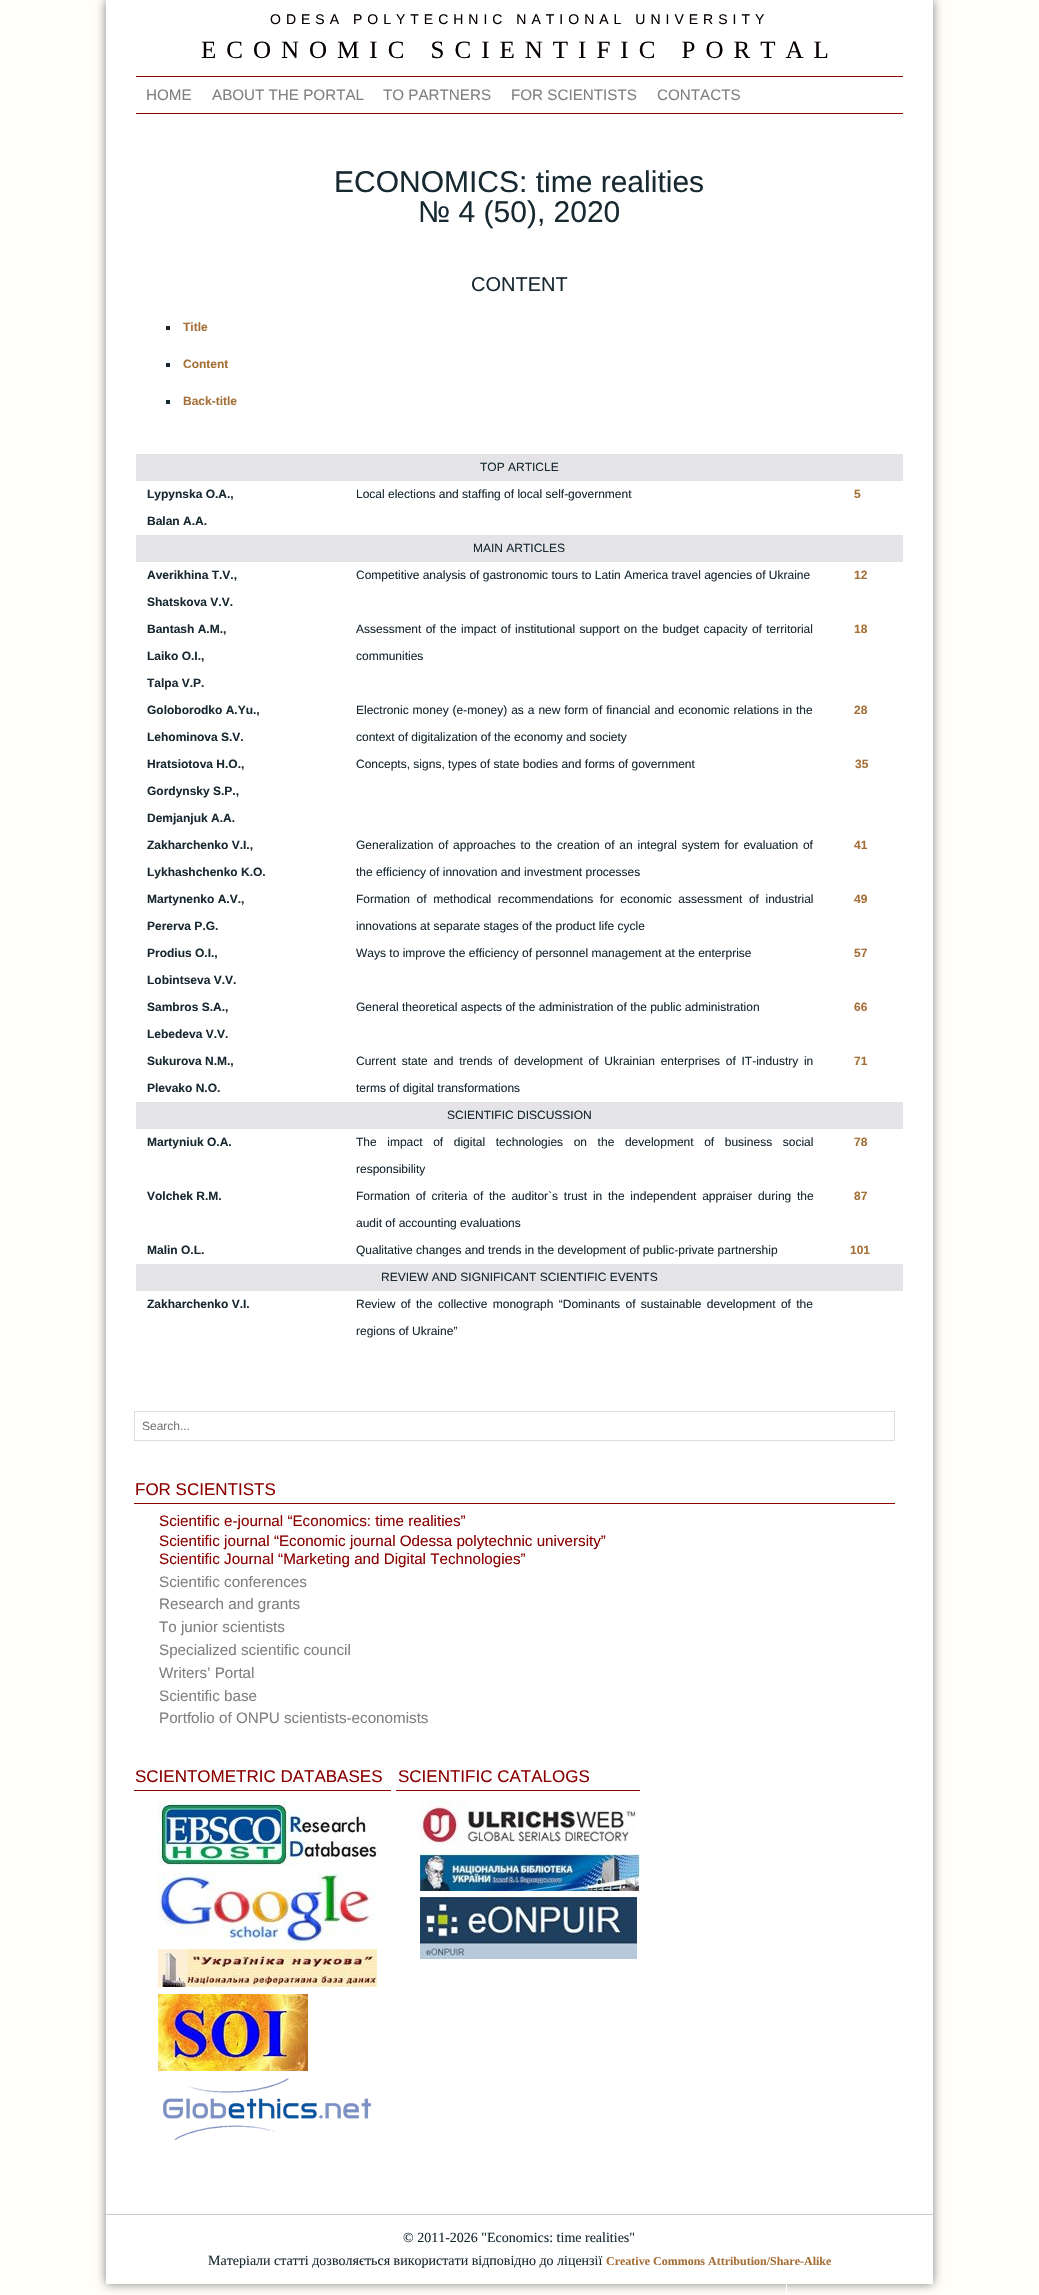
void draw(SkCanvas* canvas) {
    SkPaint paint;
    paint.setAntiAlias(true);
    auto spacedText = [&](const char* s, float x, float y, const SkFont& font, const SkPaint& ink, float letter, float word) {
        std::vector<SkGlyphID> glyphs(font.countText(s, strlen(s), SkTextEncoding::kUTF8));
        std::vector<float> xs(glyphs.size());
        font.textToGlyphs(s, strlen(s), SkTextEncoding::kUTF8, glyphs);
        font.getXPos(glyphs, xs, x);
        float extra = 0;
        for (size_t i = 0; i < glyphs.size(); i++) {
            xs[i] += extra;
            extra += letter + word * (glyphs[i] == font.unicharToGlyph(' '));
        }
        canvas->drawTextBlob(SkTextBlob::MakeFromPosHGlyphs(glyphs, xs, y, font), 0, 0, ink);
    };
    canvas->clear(0xFFFFFEF9);
    paint.setColor(0x80000000);
    paint.setMaskFilter(SkMaskFilter::MakeBlur(kNormal_SkBlurStyle, 5));
    canvas->drawRect(SkRect::MakeXYWH(106, 0, 827, 2284), paint);
    paint.setMaskFilter(nullptr);
    paint.setColor(0xFFFFFFFF);
    canvas->drawRect(SkRect::MakeXYWH(106, 0, 827, 2284), paint);
    SkFont font1(fontMgr->matchFamilyStyle("Liberation Sans", SkFontStyle::Normal()), 14);
    font1.setSubpixel(true);
    paint.setColor(0xFF070000);
    spacedText("ODESА POLYTECHNIC NATIONAL UNIVERSITY", 270, 24, font1, paint, 5, 0);
    SkFont font2(fontMgr->matchFamilyStyle("Liberation Serif", SkFontStyle::Normal()), 25);
    font2.setSubpixel(true);
    spacedText("ECONOMIC SCIENTIFIC PORTAL", 201, 58, font2, paint, 10, 0);
    paint.setColor(0xFF8C0000);
    canvas->drawRect(SkRect::MakeXYWH(136, 76, 767, 1), paint);
    canvas->drawRect(SkRect::MakeXYWH(136, 113, 767, 1), paint);
    SkFont font3(fontMgr->matchFamilyStyle("Liberation Sans", SkFontStyle::Normal()), 15.2f);
    font3.setSubpixel(true);
    paint.setColor(0xFF808080);
    canvas->drawString("HOME", 146, 100, font3, paint);
    canvas->drawString("ABOUT THE PORTAL", 212, 100, font3, paint);
    canvas->drawString("TO PARTNERS", 383, 100, font3, paint);
    canvas->drawString("FOR SCIENTISTS", 511, 100, font3, paint);
    canvas->drawString("CONTACTS", 657, 100, font3, paint);
    SkFont font4(fontMgr->matchFamilyStyle("Liberation Sans", SkFontStyle::Normal()), 30);
    font4.setSubpixel(true);
    paint.setColor(0xFF182932);
    canvas->drawString("ECONOMICS: time realities", 334, 192, font4, paint);
    canvas->drawString("№ 4 (50), 2020", 418, 222, font4, paint);
    SkFont font5(fontMgr->matchFamilyStyle("Liberation Sans", SkFontStyle::Normal()), 20);
    font5.setSubpixel(true);
    canvas->drawString("CONTENT", 471, 291, font5, paint);
    canvas->drawRect(SkRect::MakeXYWH(166, 326, 4, 4), paint);
    SkFont font6(fontMgr->matchFamilyStyle("Liberation Sans", SkFontStyle::Bold()), 12);
    font6.setSubpixel(true);
    paint.setColor(0xFFA56F38);
    canvas->drawString("Title", 183, 331, font6, paint);
    paint.setColor(0xFF182932);
    canvas->drawRect(SkRect::MakeXYWH(166, 363, 4, 4), paint);
    paint.setColor(0xFFA56F38);
    canvas->drawString("Content", 183, 368, font6, paint);
    paint.setColor(0xFF182932);
    canvas->drawRect(SkRect::MakeXYWH(166, 400, 4, 4), paint);
    paint.setColor(0xFFA56F38);
    canvas->drawString("Back-title", 183, 405, font6, paint);
    paint.setColor(0xFFE4E3E6);
    canvas->drawRect(SkRect::MakeXYWH(136, 454, 767, 27), paint);
    SkFont font7(fontMgr->matchFamilyStyle("Liberation Sans", SkFontStyle::Normal()), 12);
    font7.setSubpixel(true);
    paint.setColor(0xFF182932);
    canvas->drawString("TOP ARTICLE", 480, 471, font7, paint);
    canvas->drawString("Lypynska O.A.,", 147, 498, font6, paint);
    canvas->drawString("Balan A.A.", 147, 525, font6, paint);
    canvas->drawString("Local elections and staffing of local self-government", 356, 498, font7, paint);
    paint.setColor(0xFFA56F38);
    canvas->drawString("5", 854, 498, font6, paint);
    paint.setColor(0xFFE4E3E6);
    canvas->drawRect(SkRect::MakeXYWH(136, 535, 767, 27), paint);
    paint.setColor(0xFF182932);
    canvas->drawString("MAIN ARTICLES", 473, 552, font7, paint);
    canvas->drawString("Averikhina T.V.,", 147, 579, font6, paint);
    canvas->drawString("Shatskova V.V.", 147, 606, font6, paint);
    canvas->drawString("Competitive analysis of gastronomic tours to Latin America travel agencies of Ukraine", 356, 579, font7, paint);
    paint.setColor(0xFFA56F38);
    canvas->drawString("12", 854, 579, font6, paint);
    paint.setColor(0xFF182932);
    canvas->drawString("Bantash A.M.,", 147, 633, font6, paint);
    canvas->drawString("Laiko O.I.,", 147, 660, font6, paint);
    canvas->drawString("Talpa V.P.", 147, 687, font6, paint);
    spacedText("Assessment of the impact of institutional support on the budget capacity of territorial", 356, 633, font7, paint, 0, 1);
    canvas->drawString("communities", 356, 660, font7, paint);
    paint.setColor(0xFFA56F38);
    canvas->drawString("18", 854, 633, font6, paint);
    paint.setColor(0xFF182932);
    canvas->drawString("Goloborodko А.Yu.,", 147, 714, font6, paint);
    canvas->drawString("Lehominova S.V.", 147, 741, font6, paint);
    spacedText("Electronic money (e-money) as a new form of financial and economic relations in the", 356, 714, font7, paint, 0, 0.6f);
    canvas->drawString("context of digitalization of the economy and society", 356, 741, font7, paint);
    paint.setColor(0xFFA56F38);
    canvas->drawString("28", 854, 714, font6, paint);
    paint.setColor(0xFF182932);
    canvas->drawString("Hratsiotova H.O.,", 147, 768, font6, paint);
    canvas->drawString("Gordynsky S.P.,", 147, 795, font6, paint);
    canvas->drawString("Demjanjuk A.A.", 147, 822, font6, paint);
    canvas->drawString("Concepts, signs, types of state bodies and forms of government", 356, 768, font7, paint);
    paint.setColor(0xFFA56F38);
    canvas->drawString("35", 855, 768, font6, paint);
    paint.setColor(0xFF182932);
    canvas->drawString("Zakharchenko V.I.,", 147, 849, font6, paint);
    canvas->drawString("Lykhashchenko K.O.", 147, 876, font6, paint);
    spacedText("Generalization of approaches to the creation of an integral system for evaluation of", 356, 849, font7, paint, 0, 1.5f);
    canvas->drawString("the efficiency of innovation and investment processes", 356, 876, font7, paint);
    paint.setColor(0xFFA56F38);
    canvas->drawString("41", 854, 849, font6, paint);
    paint.setColor(0xFF182932);
    canvas->drawString("Martynenko A.V.,", 147, 903, font6, paint);
    canvas->drawString("Pererva P.G.", 147, 930, font6, paint);
    spacedText("Formation of methodical recommendations for economic assessment of industrial", 356, 903, font7, paint, 0, 3.25f);
    canvas->drawString("innovations at separate stages of the product life cycle", 356, 930, font7, paint);
    paint.setColor(0xFFA56F38);
    canvas->drawString("49", 854, 903, font6, paint);
    paint.setColor(0xFF182932);
    canvas->drawString("Prodius O.I.,", 147, 957, font6, paint);
    canvas->drawString("Lobintseva V.V.", 147, 984, font6, paint);
    canvas->drawString("Ways to improve the efficiency of personnel management at the enterprise", 356, 957, font7, paint);
    paint.setColor(0xFFA56F38);
    canvas->drawString("57", 854, 957, font6, paint);
    paint.setColor(0xFF182932);
    canvas->drawString("Sambros S.A.,", 147, 1011, font6, paint);
    canvas->drawString("Lebedeva V.V.", 147, 1038, font6, paint);
    canvas->drawString("General theoretical aspects of the administration of the public administration", 356, 1011, font7, paint);
    paint.setColor(0xFFA56F38);
    canvas->drawString("66", 854, 1011, font6, paint);
    paint.setColor(0xFF182932);
    canvas->drawString("Sukurova N.M.,", 147, 1065, font6, paint);
    canvas->drawString("Plevako N.O.", 147, 1092, font6, paint);
    spacedText("Current state and trends of development of Ukrainian enterprises of IT-industry in", 356, 1065, font7, paint, 0, 2.4f);
    canvas->drawString("terms of digital transformations", 356, 1092, font7, paint);
    paint.setColor(0xFFA56F38);
    canvas->drawString("71", 854, 1065, font6, paint);
    paint.setColor(0xFFE4E3E6);
    canvas->drawRect(SkRect::MakeXYWH(136, 1102, 767, 27), paint);
    paint.setColor(0xFF182932);
    canvas->drawString("SCIENTIFIC DISCUSSION", 447, 1119, font7, paint);
    canvas->drawString("Martyniuk О.А.", 147, 1146, font6, paint);
    spacedText("The impact of digital technologies on the development of business social", 356, 1146, font7, paint, 0, 7.25f);
    canvas->drawString("responsibility", 356, 1173, font7, paint);
    paint.setColor(0xFFA56F38);
    canvas->drawString("78", 854, 1146, font6, paint);
    paint.setColor(0xFF182932);
    canvas->drawString("Volchek R.М.", 147, 1200, font6, paint);
    spacedText("Formation of criteria of the auditor`s trust in the independent appraiser during the", 356, 1200, font7, paint, 0, 2.4f);
    canvas->drawString("audit of accounting evaluations", 356, 1227, font7, paint);
    paint.setColor(0xFFA56F38);
    canvas->drawString("87", 854, 1200, font6, paint);
    paint.setColor(0xFF182932);
    canvas->drawString("Malin O.L.", 147, 1254, font6, paint);
    canvas->drawString("Qualitative changes and trends in the development of public-private partnership", 356, 1254, font7, paint);
    paint.setColor(0xFFA56F38);
    canvas->drawString("101", 850, 1254, font6, paint);
    paint.setColor(0xFFE4E3E6);
    canvas->drawRect(SkRect::MakeXYWH(136, 1264, 767, 27), paint);
    paint.setColor(0xFF182932);
    canvas->drawString("REVIEW AND SIGNIFICANT SCIENTIFIC EVENTS", 381, 1281, font7, paint);
    canvas->drawString("Zakharchenko V.I.", 147, 1308, font6, paint);
    spacedText("Review of the collective monograph “Dominants of sustainable development of the", 356, 1308, font7, paint, 0, 2);
    canvas->drawString("regions of Ukraine”", 356, 1335, font7, paint);
    paint.setStyle(SkPaint::kStroke_Style);
    paint.setStrokeWidth(1);
    paint.setColor(0xFFDDDDDD);
    canvas->drawRect(SkRect::MakeXYWH(134.5f, 1411.5f, 760, 29), paint);
    paint.setStyle(SkPaint::kFill_Style);
    paint.setColor(0xFF757575);
    canvas->drawString("Search...", 142, 1430, font7, paint);
    paint.setColor(0xFF8C0000);
    canvas->drawRect(SkRect::MakeXYWH(134, 1503, 761, 1), paint);
    SkFont font8(fontMgr->matchFamilyStyle("Liberation Sans", SkFontStyle::Normal()), 17);
    font8.setSubpixel(true);
    canvas->drawString("FOR SCIENTISTS", 135, 1495, font8, paint);
    canvas->drawString("Scientific e-journal “Economics: time realities”", 159, 1526, font3, paint);
    canvas->drawString("Scientific journal “Economic journal Odessa polytechnic university”", 159, 1546, font3, paint);
    canvas->drawString("Scientific Journal “Marketing and Digital Technologies”", 159, 1564, font3, paint);
    paint.setColor(0xFF808080);
    canvas->drawString("Scientific conferences", 159, 1587, font3, paint);
    canvas->drawString("Research and grants", 159, 1609, font3, paint);
    canvas->drawString("To junior scientists", 159, 1632, font3, paint);
    canvas->drawString("Specialized scientific council", 159, 1655, font3, paint);
    canvas->drawString("Writers’ Portal", 159, 1678, font3, paint);
    canvas->drawString("Scientific base", 159, 1701, font3, paint);
    canvas->drawString("Portfolio of ONPU scientists-economists", 159, 1723, font3, paint);
    paint.setColor(0xFF8C0000);
    canvas->drawRect(SkRect::MakeXYWH(134, 1790, 257, 1), paint);
    canvas->drawString("SCIENTOMETRIC DATABASES", 135, 1782, font8, paint);
    canvas->drawImageRect(SkImages::DeferredFromEncodedData(SkData::MakeFromFileName("img1.png")), SkRect::MakeXYWH(158, 1801, 220, 65), SkSamplingOptions());
    canvas->drawImageRect(SkImages::DeferredFromEncodedData(SkData::MakeFromFileName("img2.png")), SkRect::MakeXYWH(158, 1873, 218, 70), SkSamplingOptions());
    canvas->drawImageRect(SkImages::DeferredFromEncodedData(SkData::MakeFromFileName("img3.png")), SkRect::MakeXYWH(158, 1949, 219, 38), SkSamplingOptions());
    canvas->drawImageRect(SkImages::DeferredFromEncodedData(SkData::MakeFromFileName("img4.png")), SkRect::MakeXYWH(158, 1994, 150, 77), SkSamplingOptions());
    canvas->drawImageRect(SkImages::DeferredFromEncodedData(SkData::MakeFromFileName("img5.png")), SkRect::MakeXYWH(163, 2078, 208, 62), SkSamplingOptions());
    canvas->drawRect(SkRect::MakeXYWH(396, 1790, 244, 1), paint);
    canvas->drawString("SCIENTIFIC CATALOGS", 398, 1782, font8, paint);
    canvas->drawImageRect(SkImages::DeferredFromEncodedData(SkData::MakeFromFileName("img6.png")), SkRect::MakeXYWH(420, 1801, 216, 46), SkSamplingOptions());
    canvas->drawImageRect(SkImages::DeferredFromEncodedData(SkData::MakeFromFileName("img7.png")), SkRect::MakeXYWH(420, 1854, 220, 37), SkSamplingOptions());
    canvas->drawImageRect(SkImages::DeferredFromEncodedData(SkData::MakeFromFileName("img8.png")), SkRect::MakeXYWH(420, 1897, 217, 62), SkSamplingOptions());
    paint.setColor(0xFFCCCCCC);
    canvas->drawRect(SkRect::MakeXYWH(106, 2214, 827, 1), paint);
    SkFont font9(fontMgr->matchFamilyStyle("Liberation Serif", SkFontStyle::Normal()), 14);
    font9.setSubpixel(true);
    paint.setColor(0xFF182932);
    canvas->drawString("© 2011-2026 \"Economics: time realities\"", 403, 2242, font9, paint);
    canvas->drawString("Матеріали статті дозволяється використати відповідно до ліцензії", 208, 2265, font9, paint);
    SkFont font10(fontMgr->matchFamilyStyle("Liberation Serif", SkFontStyle::Bold()), 12);
    font10.setSubpixel(true);
    paint.setColor(0xFFA56F38);
    canvas->drawString("Creative Commons Attribution/Share-Alike", 606, 2265, font10, paint);
    paint.setColor(0xFFFFFFFF);
    canvas->drawRect(SkRect::MakeXYWH(786, 2284, 1, 11), paint);
}
